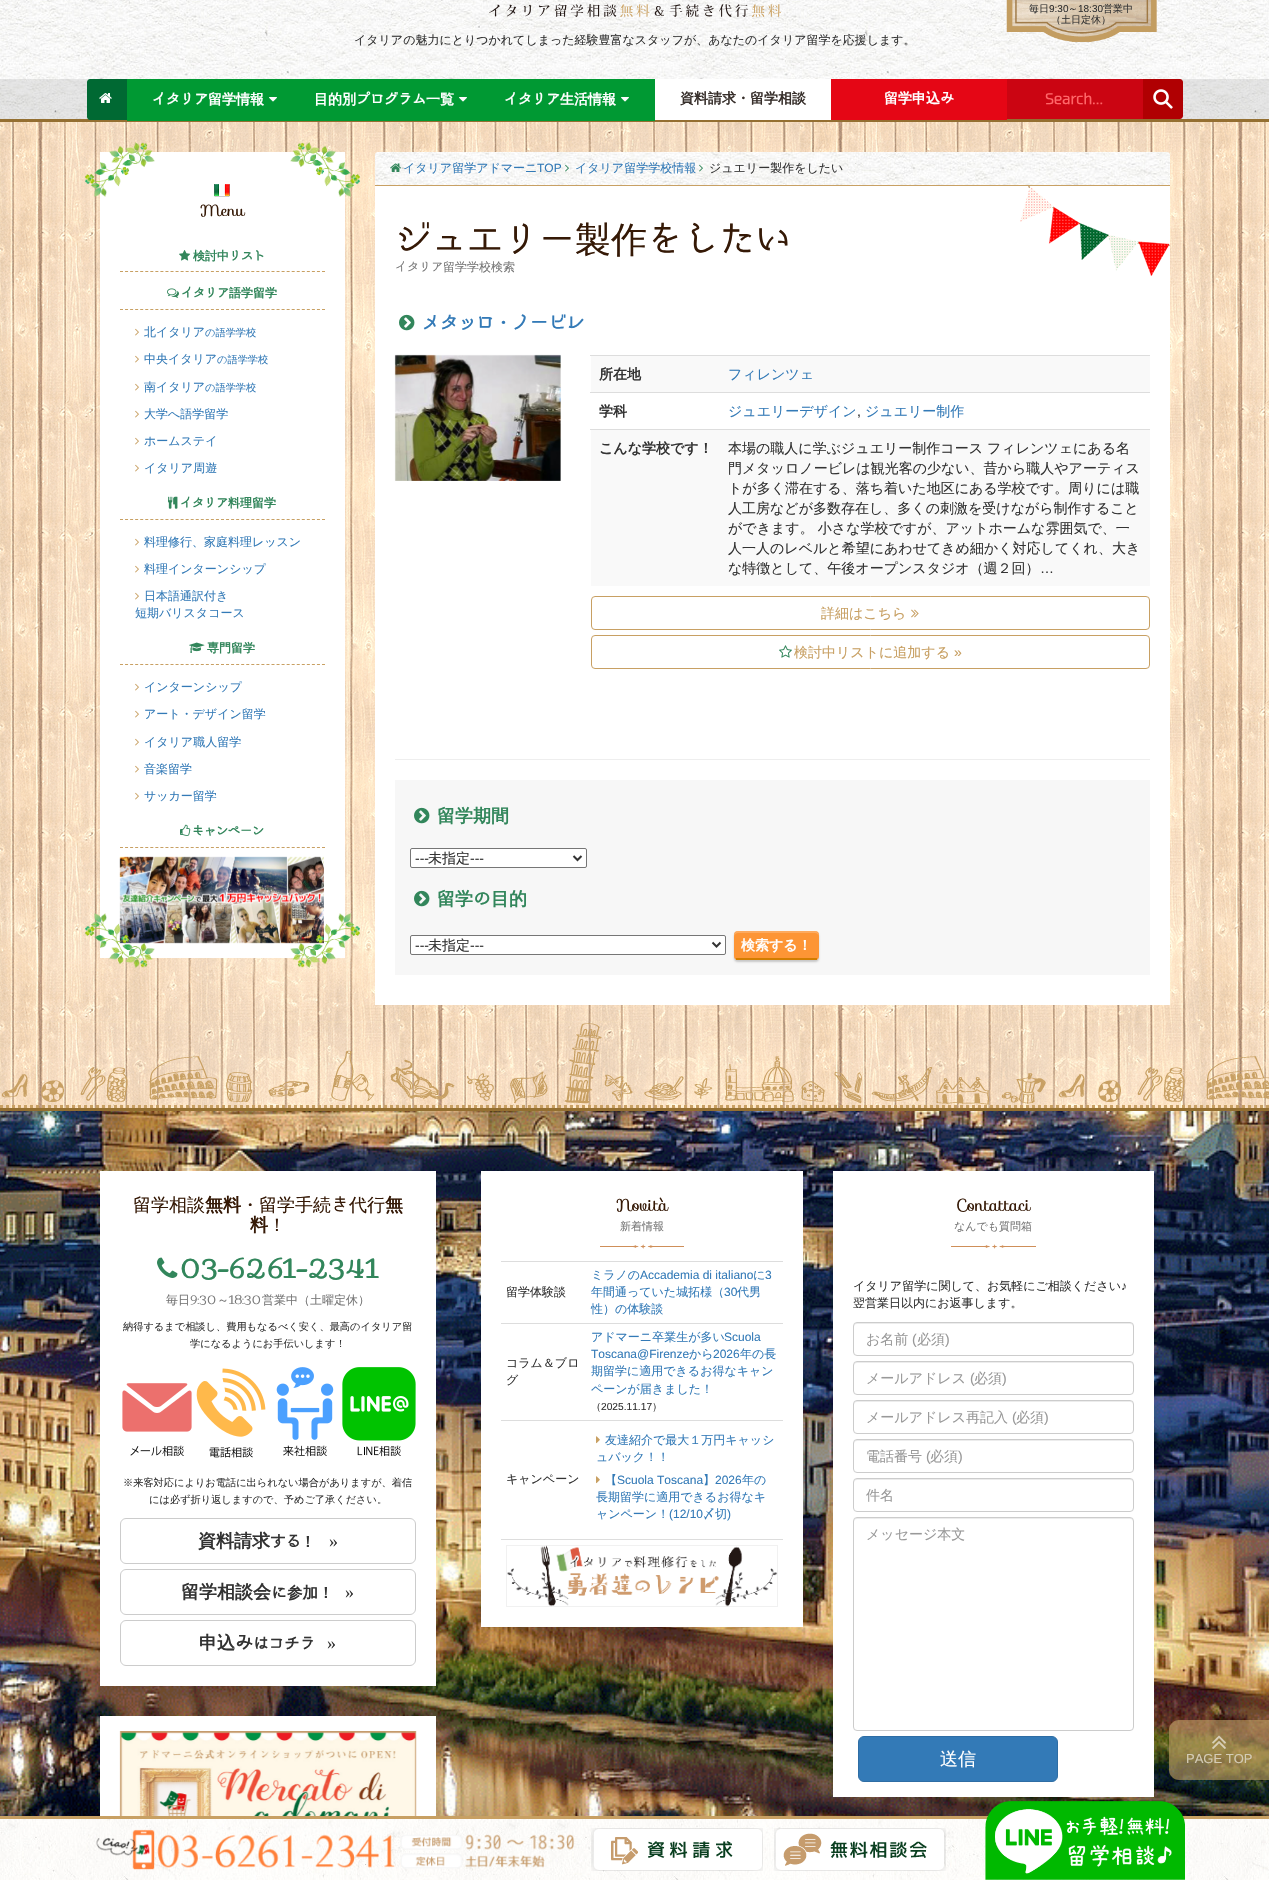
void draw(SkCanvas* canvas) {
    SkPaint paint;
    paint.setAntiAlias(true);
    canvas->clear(0xFFFFFFFF);
    canvas->drawImageRect(SkImages::DeferredFromEncodedData(SkData::MakeFromFileName("img1.png")), SkRect::MakeXYWH(0, 122, 1269, 986), SkSamplingOptions());
    canvas->drawImageRect(SkImages::DeferredFromEncodedData(SkData::MakeFromFileName("img2.png")), SkRect::MakeXYWH(0, 0, 1269, 119), SkSamplingOptions());
    canvas->drawImageRect(SkImages::DeferredFromEncodedData(SkData::MakeFromFileName("img3.png")), SkRect::MakeXYWH(489, 4, 292, 13), SkSamplingOptions());
    canvas->drawImageRect(SkImages::DeferredFromEncodedData(SkData::MakeFromFileName("img4.png")), SkRect::MakeXYWH(1006, 0, 151, 42), SkSamplingOptions());
    SkFont font1(fontMgr->matchFamilyStyle("WenQuanYi Zen Hei", SkFontStyle(500, SkFontStyle::kNormal_Width, SkFontStyle::kUpright_Slant)), 10);
    font1.setSubpixel(true);
    paint.setColor(0xFF333333);
    canvas->drawString("毎日", 1029, 12, font1, paint);
    SkFont font2(fontMgr->matchFamilyStyle("Liberation Sans", SkFontStyle::Normal()), 10);
    font2.setSubpixel(true);
    canvas->drawString("9:30", 1049, 12, font2, paint);
    canvas->drawString("～", 1068, 12, font1, paint);
    canvas->drawString("18:30", 1078, 12, font2, paint);
    canvas->drawString("営業中", 1103, 12, font1, paint);
    canvas->drawString("（土日定休）", 1051, 23, font1, paint);
    SkFont font3(fontMgr->matchFamilyStyle("WenQuanYi Zen Hei", SkFontStyle(500, SkFontStyle::kNormal_Width, SkFontStyle::kUpright_Slant)), 12);
    font3.setSubpixel(true);
    canvas->drawString("イタリアの魅力にとりつかれてしまった経験豊富なスタッフが、あなたのイタリア留学を応援します。", 354, 44, font3, paint);
    paint.setColor(0x338C8C8C);
    canvas->drawRect(SkRect::MakeXYWH(0, 79, 1269, 40), paint);
    paint.setColor(0xFF946F31);
    canvas->drawRect(SkRect::MakeXYWH(0, 119, 1269, 3), paint);
    paint.setColor(0xFF006933);
    canvas->drawPath(SkPathBuilder().moveTo(90, 79).lineTo(127, 79).lineTo(127, 120).lineTo(90, 120).cubicTo(88.5f, 120, 87, 118.5f, 87, 117).lineTo(87, 82).cubicTo(87, 80.5f, 88.5f, 79, 90, 79).close().detach(), paint);
    canvas->drawImageRect(SkImages::DeferredFromEncodedData(SkData::MakeFromFileName("img5.png")), SkRect::MakeXYWH(99, 93, 13, 10), SkSamplingOptions());
    paint.setColor(0xFF009933);
    canvas->drawRect(SkRect::MakeXYWH(127, 79, 528, 42), paint);
    SkFont font4(fontMgr->matchFamilyStyle("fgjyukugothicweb", SkFontStyle::Bold()), 14);
    font4.setSubpixel(true);
    paint.setColor(0xFFFFFFFF);
    canvas->drawString("イタリア", 152, 104, font4, paint);
    SkFont font5(fontMgr->matchFamilyStyle("WenQuanYi Zen Hei", SkFontStyle::Bold()), 14);
    font5.setSubpixel(true);
    canvas->drawString("留学情報", 208, 104, font5, paint);
    canvas->drawImageRect(SkImages::DeferredFromEncodedData(SkData::MakeFromFileName("img6.png")), SkRect::MakeXYWH(269, 97, 8, 5), SkSamplingOptions());
    canvas->drawString("目的別", 314, 104, font5, paint);
    canvas->drawString("プログラム", 356, 104, font4, paint);
    canvas->drawString("一覧", 426, 104, font5, paint);
    canvas->drawImageRect(SkImages::DeferredFromEncodedData(SkData::MakeFromFileName("img6.png")), SkRect::MakeXYWH(459, 97, 8, 5), SkSamplingOptions());
    canvas->drawString("イタリア", 504, 104, font4, paint);
    canvas->drawString("生活情報", 560, 104, font5, paint);
    canvas->drawImageRect(SkImages::DeferredFromEncodedData(SkData::MakeFromFileName("img6.png")), SkRect::MakeXYWH(621, 97, 8, 5), SkSamplingOptions());
    canvas->drawRect(SkRect::MakeXYWH(655, 79, 176, 41), paint);
    paint.setColor(0xFF372F2B);
    canvas->drawString("資料請求・留学相談", 680, 103, font5, paint);
    paint.setColor(0xFFE50615);
    canvas->drawRect(SkRect::MakeXYWH(831, 79, 176, 41), paint);
    paint.setColor(0xFFFFFFFF);
    canvas->drawString("留学申込", 884, 103, font5, paint);
    canvas->drawString("み", 940, 103, font4, paint);
    paint.setColor(0xFFCB0512);
    canvas->drawRect(SkRect::MakeXYWH(1007, 79, 136, 40), paint);
    paint.setColor(0xFFFF6668);
    canvas->drawString("Search...", 1045, 104, font4, paint);
    paint.setColor(0xFFB00002);
    canvas->drawPath(SkPathBuilder().moveTo(1143, 79).lineTo(1180, 79).cubicTo(1181.5f, 79, 1183, 80.5f, 1183, 82).lineTo(1183, 116).cubicTo(1183, 117.5f, 1181.5f, 119, 1180, 119).lineTo(1143, 119).close().detach(), paint);
    canvas->drawImageRect(SkImages::DeferredFromEncodedData(SkData::MakeFromFileName("img7.png")), SkRect::MakeXYWH(1153, 89, 20, 20), SkSamplingOptions());
    canvas->drawImageRect(SkImages::DeferredFromEncodedData(SkData::MakeFromFileName("img8.png")), SkRect::MakeXYWH(0, 122, 1269, 986), SkSamplingOptions());
    paint.setColor(0xFF946F31);
    canvas->drawRect(SkRect::MakeXYWH(0, 1108, 1269, 3), paint);
    canvas->drawImageRect(SkImages::DeferredFromEncodedData(SkData::MakeFromFileName("img9.png")), SkRect::MakeXYWH(1, 1023, 1268, 82), SkSamplingOptions());
    paint.setStyle(SkPaint::kStroke_Style);
    paint.setStrokeWidth(3);
    paint.setColor(0xFFC8A063);
    paint.setPathEffect(SkDashPathEffect::Make({{3, 3}}, 0));
    canvas->drawPath(SkPathBuilder().moveTo(0, 1106.5f).lineTo(1269, 1106.5f).detach(), paint);
    paint.setPathEffect(nullptr);
    paint.setStyle(SkPaint::kFill_Style);
    paint.setColor(0xFFFFFFFF);
    canvas->drawRect(SkRect::MakeXYWH(100, 152, 245, 806), paint);
    canvas->drawImageRect(SkImages::DeferredFromEncodedData(SkData::MakeFromFileName("img10.png")), SkRect::MakeXYWH(85, 142, 70, 55), SkSamplingOptions());
    canvas->drawImageRect(SkImages::DeferredFromEncodedData(SkData::MakeFromFileName("img11.png")), SkRect::MakeXYWH(290, 142, 70, 55), SkSamplingOptions());
    canvas->drawImageRect(SkImages::DeferredFromEncodedData(SkData::MakeFromFileName("img12.png")), SkRect::MakeXYWH(214, 184, 16, 13), SkSamplingOptions());
    SkFont font6(fontMgr->matchFamilyStyle("Sofia", SkFontStyle::Normal()), 16);
    font6.setSubpixel(true);
    paint.setColor(0xFF351906);
    canvas->drawString("Menu", 200, 216, font6, paint);
    paint.setStyle(SkPaint::kStroke_Style);
    paint.setStrokeWidth(1);
    paint.setColor(0xFFC8A063);
    paint.setPathEffect(SkDashPathEffect::Make({{3, 2.05f}}, 0));
    canvas->drawPath(SkPathBuilder().moveTo(120, 271.5f).lineTo(325, 271.5f).detach(), paint);
    paint.setPathEffect(nullptr);
    canvas->drawImageRect(SkImages::DeferredFromEncodedData(SkData::MakeFromFileName("img13.png")), SkRect::MakeXYWH(179, 250, 12, 11), SkSamplingOptions());
    SkFont font7(fontMgr->matchFamilyStyle("WenQuanYi Zen Hei", SkFontStyle::Bold()), 12);
    font7.setSubpixel(true);
    paint.setStyle(SkPaint::kFill_Style);
    paint.setColor(0xFF32865B);
    canvas->drawString("検討中", 193, 260, font7, paint);
    SkFont font8(fontMgr->matchFamilyStyle("fgjyukugothicweb", SkFontStyle::Bold()), 12);
    font8.setSubpixel(true);
    canvas->drawString("リスト", 229, 260, font8, paint);
    paint.setStyle(SkPaint::kStroke_Style);
    paint.setColor(0xFFC8A063);
    paint.setPathEffect(SkDashPathEffect::Make({{3, 2.05f}}, 0));
    canvas->drawPath(SkPathBuilder().moveTo(120, 309.5f).lineTo(325, 309.5f).detach(), paint);
    paint.setPathEffect(nullptr);
    canvas->drawImageRect(SkImages::DeferredFromEncodedData(SkData::MakeFromFileName("img14.png")), SkRect::MakeXYWH(167, 288, 12, 10), SkSamplingOptions());
    paint.setStyle(SkPaint::kFill_Style);
    paint.setColor(0xFF32865B);
    canvas->drawString("イタリア", 181, 297, font8, paint);
    canvas->drawString("語学留学", 229, 297, font7, paint);
    canvas->drawImageRect(SkImages::DeferredFromEncodedData(SkData::MakeFromFileName("img15.png")), SkRect::MakeXYWH(135, 328, 4, 8), SkSamplingOptions());
    paint.setColor(0xFF337AB7);
    canvas->drawString("北イタリア", 144, 336, font3, paint);
    SkFont font9(fontMgr->matchFamilyStyle("WenQuanYi Zen Hei", SkFontStyle(500, SkFontStyle::kNormal_Width, SkFontStyle::kUpright_Slant)), 10.2f);
    font9.setSubpixel(true);
    canvas->drawString("の語学学校", 205, 336, font9, paint);
    canvas->drawImageRect(SkImages::DeferredFromEncodedData(SkData::MakeFromFileName("img15.png")), SkRect::MakeXYWH(135, 355, 4, 8), SkSamplingOptions());
    canvas->drawString("中央イタリア", 144, 363, font3, paint);
    canvas->drawString("の語学学校", 217, 363, font9, paint);
    canvas->drawImageRect(SkImages::DeferredFromEncodedData(SkData::MakeFromFileName("img15.png")), SkRect::MakeXYWH(135, 383, 4, 8), SkSamplingOptions());
    canvas->drawString("南イタリア", 144, 391, font3, paint);
    canvas->drawString("の語学学校", 205, 391, font9, paint);
    canvas->drawImageRect(SkImages::DeferredFromEncodedData(SkData::MakeFromFileName("img15.png")), SkRect::MakeXYWH(135, 410, 4, 8), SkSamplingOptions());
    canvas->drawString("大学へ語学留学", 144, 418, font3, paint);
    canvas->drawImageRect(SkImages::DeferredFromEncodedData(SkData::MakeFromFileName("img15.png")), SkRect::MakeXYWH(135, 437, 4, 8), SkSamplingOptions());
    canvas->drawString("ホームステイ", 144, 445, font3, paint);
    canvas->drawImageRect(SkImages::DeferredFromEncodedData(SkData::MakeFromFileName("img15.png")), SkRect::MakeXYWH(135, 464, 4, 8), SkSamplingOptions());
    canvas->drawString("イタリア周遊", 144, 472, font3, paint);
    paint.setStyle(SkPaint::kStroke_Style);
    paint.setColor(0xFFC8A063);
    paint.setPathEffect(SkDashPathEffect::Make({{3, 2.05f}}, 0));
    canvas->drawPath(SkPathBuilder().moveTo(120, 519.5f).lineTo(325, 519.5f).detach(), paint);
    paint.setPathEffect(nullptr);
    canvas->drawImageRect(SkImages::DeferredFromEncodedData(SkData::MakeFromFileName("img16.png")), SkRect::MakeXYWH(168, 496, 10, 13), SkSamplingOptions());
    paint.setStyle(SkPaint::kFill_Style);
    paint.setColor(0xFF32865B);
    canvas->drawString("イタリア", 180, 507, font8, paint);
    canvas->drawString("料理留学", 228, 507, font7, paint);
    canvas->drawImageRect(SkImages::DeferredFromEncodedData(SkData::MakeFromFileName("img15.png")), SkRect::MakeXYWH(135, 538, 4, 8), SkSamplingOptions());
    paint.setColor(0xFF337AB7);
    canvas->drawString("料理修行、家庭料理レッスン", 144, 546, font3, paint);
    canvas->drawImageRect(SkImages::DeferredFromEncodedData(SkData::MakeFromFileName("img15.png")), SkRect::MakeXYWH(135, 565, 4, 8), SkSamplingOptions());
    canvas->drawString("料理インターンシップ", 144, 573, font3, paint);
    canvas->drawImageRect(SkImages::DeferredFromEncodedData(SkData::MakeFromFileName("img15.png")), SkRect::MakeXYWH(135, 592, 4, 8), SkSamplingOptions());
    canvas->drawString("日本語通訳付き", 144, 600, font3, paint);
    canvas->drawString("短期バリスタコース", 135, 617, font3, paint);
    paint.setStyle(SkPaint::kStroke_Style);
    paint.setColor(0xFFC8A063);
    paint.setPathEffect(SkDashPathEffect::Make({{3, 2.05f}}, 0));
    canvas->drawPath(SkPathBuilder().moveTo(120, 664.5f).lineTo(325, 664.5f).detach(), paint);
    paint.setPathEffect(nullptr);
    canvas->drawImageRect(SkImages::DeferredFromEncodedData(SkData::MakeFromFileName("img17.png")), SkRect::MakeXYWH(189, 642, 16, 11), SkSamplingOptions());
    paint.setStyle(SkPaint::kFill_Style);
    paint.setColor(0xFF32865B);
    canvas->drawString("専門留学", 207, 652, font7, paint);
    canvas->drawImageRect(SkImages::DeferredFromEncodedData(SkData::MakeFromFileName("img15.png")), SkRect::MakeXYWH(135, 683, 4, 8), SkSamplingOptions());
    paint.setColor(0xFF337AB7);
    canvas->drawString("インターンシップ", 144, 691, font3, paint);
    canvas->drawImageRect(SkImages::DeferredFromEncodedData(SkData::MakeFromFileName("img15.png")), SkRect::MakeXYWH(135, 710, 4, 8), SkSamplingOptions());
    canvas->drawString("アート・デザイン留学", 144, 718, font3, paint);
    canvas->drawImageRect(SkImages::DeferredFromEncodedData(SkData::MakeFromFileName("img15.png")), SkRect::MakeXYWH(135, 738, 4, 8), SkSamplingOptions());
    canvas->drawString("イタリア職人留学", 144, 746, font3, paint);
    canvas->drawImageRect(SkImages::DeferredFromEncodedData(SkData::MakeFromFileName("img15.png")), SkRect::MakeXYWH(135, 765, 4, 8), SkSamplingOptions());
    canvas->drawString("音楽留学", 144, 773, font3, paint);
    canvas->drawImageRect(SkImages::DeferredFromEncodedData(SkData::MakeFromFileName("img15.png")), SkRect::MakeXYWH(135, 792, 4, 8), SkSamplingOptions());
    canvas->drawString("サッカー留学", 144, 800, font3, paint);
    paint.setStyle(SkPaint::kStroke_Style);
    paint.setColor(0xFFC8A063);
    paint.setPathEffect(SkDashPathEffect::Make({{3, 2.05f}}, 0));
    canvas->drawPath(SkPathBuilder().moveTo(120, 847.5f).lineTo(325, 847.5f).detach(), paint);
    paint.setPathEffect(nullptr);
    canvas->drawImageRect(SkImages::DeferredFromEncodedData(SkData::MakeFromFileName("img18.png")), SkRect::MakeXYWH(180, 824, 11, 12), SkSamplingOptions());
    paint.setStyle(SkPaint::kFill_Style);
    paint.setColor(0xFF32865B);
    canvas->drawString("キャンペーン", 192, 835, font8, paint);
    canvas->drawImageRect(SkImages::DeferredFromEncodedData(SkData::MakeFromFileName("img19.png")), SkRect::MakeXYWH(119, 856, 205, 88), SkSamplingOptions());
    canvas->drawImageRect(SkImages::DeferredFromEncodedData(SkData::MakeFromFileName("img20.png")), SkRect::MakeXYWH(85, 913, 70, 55), SkSamplingOptions());
    canvas->drawImageRect(SkImages::DeferredFromEncodedData(SkData::MakeFromFileName("img21.png")), SkRect::MakeXYWH(290, 913, 70, 55), SkSamplingOptions());
    canvas->drawImageRect(SkImages::DeferredFromEncodedData(SkData::MakeFromFileName("img22.png")), SkRect::MakeXYWH(375, 152, 795, 33), SkSamplingOptions());
    paint.setColor(0xFFC8A063);
    canvas->drawRect(SkRect::MakeXYWH(375, 185, 795, 1), paint);
    canvas->drawImageRect(SkImages::DeferredFromEncodedData(SkData::MakeFromFileName("img23.png")), SkRect::MakeXYWH(390, 163, 11, 9), SkSamplingOptions());
    paint.setColor(0xFF337AB7);
    canvas->drawString("イタリア留学アドマーニ", 403, 172, font3, paint);
    SkFont font10(fontMgr->matchFamilyStyle("Liberation Sans", SkFontStyle::Normal()), 12);
    font10.setSubpixel(true);
    canvas->drawString("TOP", 537, 172, font10, paint);
    canvas->drawImageRect(SkImages::DeferredFromEncodedData(SkData::MakeFromFileName("img24.png")), SkRect::MakeXYWH(565, 164, 4, 8), SkSamplingOptions());
    canvas->drawString("イタリア留学学校情報", 575, 172, font3, paint);
    canvas->drawImageRect(SkImages::DeferredFromEncodedData(SkData::MakeFromFileName("img25.png")), SkRect::MakeXYWH(699, 164, 4, 8), SkSamplingOptions());
    paint.setColor(0xFF333333);
    canvas->drawString("ジュエリー製作をしたい", 709, 172, font3, paint);
    paint.setColor(0xFFFFFFFF);
    canvas->drawRect(SkRect::MakeXYWH(375, 186, 795, 819), paint);
    canvas->drawImageRect(SkImages::DeferredFromEncodedData(SkData::MakeFromFileName("img26.png")), SkRect::MakeXYWH(1020, 186, 150, 90), SkSamplingOptions());
    SkFont font11(fontMgr->matchFamilyStyle("fgjyukugothicweb", SkFontStyle::Normal()), 36);
    font11.setSubpixel(true);
    paint.setColor(0xFF351906);
    canvas->drawString("ジュエリー", 395, 252, font11, paint);
    SkFont font12(fontMgr->matchFamilyStyle("WenQuanYi Zen Hei", SkFontStyle(500, SkFontStyle::kNormal_Width, SkFontStyle::kUpright_Slant)), 36);
    font12.setSubpixel(true);
    canvas->drawString("製作", 575, 252, font12, paint);
    canvas->drawString("をしたい", 647, 252, font11, paint);
    SkFont font13(fontMgr->matchFamilyStyle("fgjyukugothicweb", SkFontStyle::Normal()), 12);
    font13.setSubpixel(true);
    paint.setColor(0xFF777777);
    canvas->drawString("イタリア", 395, 271, font13, paint);
    canvas->drawString("留学学校検索", 443, 271, font3, paint);
    canvas->drawImageRect(SkImages::DeferredFromEncodedData(SkData::MakeFromFileName("img27.png")), SkRect::MakeXYWH(399, 314, 16, 17), SkSamplingOptions());
    SkFont font14(fontMgr->matchFamilyStyle("fgjyukugothicweb", SkFontStyle::Bold()), 18);
    font14.setSubpixel(true);
    paint.setColor(0xFF337AB7);
    canvas->drawString("メタッロ", 422, 329, font14, paint);
    SkFont font15(fontMgr->matchFamilyStyle("WenQuanYi Zen Hei", SkFontStyle::Bold()), 18);
    font15.setSubpixel(true);
    canvas->drawString("・", 494, 329, font15, paint);
    canvas->drawString("ノービレ", 512, 329, font14, paint);
    canvas->drawImageRect(SkImages::DeferredFromEncodedData(SkData::MakeFromFileName("img28.png")), SkRect::MakeXYWH(394, 354, 167, 127), SkSamplingOptions());
    paint.setColor(0xFFF9F9F9);
    canvas->drawRect(SkRect::MakeXYWH(591, 356, 559, 36), paint);
    paint.setColor(0xFF333333);
    canvas->drawString("所在地", 599, 379, font5, paint);
    paint.setColor(0xFFDDDDDD);
    canvas->drawRect(SkRect::MakeXYWH(590, 355, 560, 1), paint);
    SkFont font16(fontMgr->matchFamilyStyle("WenQuanYi Zen Hei", SkFontStyle(500, SkFontStyle::kNormal_Width, SkFontStyle::kUpright_Slant)), 14);
    font16.setSubpixel(true);
    paint.setColor(0xFF337AB7);
    canvas->drawString("フィレンツェ", 728, 379, font16, paint);
    paint.setColor(0xFF333333);
    canvas->drawString("学科", 599, 416, font5, paint);
    paint.setColor(0xFFDDDDDD);
    canvas->drawRect(SkRect::MakeXYWH(590, 392, 560, 1), paint);
    paint.setColor(0xFF337AB7);
    canvas->drawString("ジュエリーデザイン", 728, 416, font16, paint);
    SkFont font17(fontMgr->matchFamilyStyle("Liberation Sans", SkFontStyle::Normal()), 14);
    font17.setSubpixel(true);
    paint.setColor(0xFF333333);
    canvas->drawString(",", 857, 416, font17, paint);
    paint.setColor(0xFF337AB7);
    canvas->drawString("ジュエリー制作", 865, 416, font16, paint);
    paint.setColor(0xFFF9F9F9);
    canvas->drawRect(SkRect::MakeXYWH(591, 430, 559, 156), paint);
    paint.setColor(0xFF333333);
    canvas->drawString("こんな学校です！", 599, 453, font5, paint);
    paint.setColor(0xFFDDDDDD);
    canvas->drawRect(SkRect::MakeXYWH(590, 429, 560, 1), paint);
    paint.setColor(0xFF333333);
    canvas->drawString("本場の職人に学ぶジュエリー制作コース", 728, 453, font16, paint);
    canvas->drawString("フィレンツェにある名", 987, 453, font16, paint);
    canvas->drawString("門メタッロノービレは観光客の少ない、昔から職人やアーティス", 728, 473, font16, paint);
    canvas->drawString("トが多く滞在する、落ち着いた地区にある学校です。周りには職", 728, 493, font16, paint);
    canvas->drawString("人工房などが多数存在し、多くの刺激を受けながら制作すること", 728, 513, font16, paint);
    canvas->drawString("ができます。 小さな学校ですが、アットホームな雰囲気で、一", 728, 533, font16, paint);
    canvas->drawString("人一人のレベルと希望にあわせてきめ細かく対応してくれ、大き", 728, 553, font16, paint);
    canvas->drawString("な特徴として、午後オープンスタジオ（週２回）", 728, 573, font16, paint);
    canvas->drawString("…", 1040, 573, font17, paint);
    paint.setStyle(SkPaint::kStroke_Style);
    paint.setColor(0xFFC8A063);
    canvas->drawRoundRect(SkRect::MakeXYWH(591.5f, 596.5f, 558, 33), 3.5f, 3.5f, paint);
    paint.setStyle(SkPaint::kFill_Style);
    canvas->drawString("詳細はこちら", 821, 618, font16, paint);
    canvas->drawImageRect(SkImages::DeferredFromEncodedData(SkData::MakeFromFileName("img29.png")), SkRect::MakeXYWH(911, 609, 8, 9), SkSamplingOptions());
    paint.setStyle(SkPaint::kStroke_Style);
    canvas->drawRoundRect(SkRect::MakeXYWH(591.5f, 635.5f, 558, 33), 3.5f, 3.5f, paint);
    canvas->drawImageRect(SkImages::DeferredFromEncodedData(SkData::MakeFromFileName("img30.png")), SkRect::MakeXYWH(779, 645, 13, 13), SkSamplingOptions());
    paint.setStyle(SkPaint::kFill_Style);
    canvas->drawString("検討中リストに追加する", 794, 657, font16, paint);
    canvas->drawString("»", 954, 657, font17, paint);
    paint.setColor(0xFFEEEEEE);
    canvas->drawRect(SkRect::MakeXYWH(395, 759, 755, 1), paint);
    paint.setColor(0xFFF7F7F7);
    canvas->drawRect(SkRect::MakeXYWH(395, 780, 755, 195), paint);
    canvas->drawImageRect(SkImages::DeferredFromEncodedData(SkData::MakeFromFileName("img31.png")), SkRect::MakeXYWH(414, 807, 16, 17), SkSamplingOptions());
    paint.setColor(0xFF32865B);
    canvas->drawString("留学期間", 437, 822, font15, paint);
    paint.setColor(0xFFFFFFFF);
    canvas->drawRoundRect(SkRect::MakeXYWH(410.5f, 848.5f, 176, 19), 1.5f, 1.5f, paint);
    paint.setStyle(SkPaint::kStroke_Style);
    paint.setColor(0xFF767676);
    canvas->drawRoundRect(SkRect::MakeXYWH(410.5f, 848.5f, 176, 19), 1.5f, 1.5f, paint);
    paint.setStrokeWidth(2);
    paint.setColor(0xFF333333);
    canvas->drawPath(SkPathBuilder().moveTo(573.5f, 856).lineTo(577.5f, 860).lineTo(581.5f, 856).detach(), paint);
    paint.setStyle(SkPaint::kFill_Style);
    canvas->drawString("---", 415, 863, font17, paint);
    canvas->drawString("未指定", 428, 863, font16, paint);
    canvas->drawString("---", 470, 863, font17, paint);
    canvas->drawImageRect(SkImages::DeferredFromEncodedData(SkData::MakeFromFileName("img31.png")), SkRect::MakeXYWH(414, 890, 16, 17), SkSamplingOptions());
    paint.setColor(0xFF32865B);
    canvas->drawString("留学", 437, 905, font15, paint);
    canvas->drawString("の", 473, 905, font14, paint);
    canvas->drawString("目的", 491, 905, font15, paint);
    paint.setColor(0xFFFFFFFF);
    canvas->drawRoundRect(SkRect::MakeXYWH(410.5f, 935.5f, 315, 19), 1.5f, 1.5f, paint);
    paint.setStyle(SkPaint::kStroke_Style);
    paint.setStrokeWidth(1);
    paint.setColor(0xFF767676);
    canvas->drawRoundRect(SkRect::MakeXYWH(410.5f, 935.5f, 315, 19), 1.5f, 1.5f, paint);
    paint.setStrokeWidth(2);
    paint.setColor(0xFF333333);
    canvas->drawPath(SkPathBuilder().moveTo(712.5f, 942.5f).lineTo(716.5f, 946.5f).lineTo(720.5f, 942.5f).detach(), paint);
    paint.setStyle(SkPaint::kFill_Style);
    canvas->drawString("---", 415, 950, font17, paint);
    canvas->drawString("未指定", 428, 950, font16, paint);
    canvas->drawString("---", 470, 950, font17, paint);
    paint.setColor(0x30000000);
    paint.setMaskFilter(SkMaskFilter::MakeBlur(kNormal_SkBlurStyle, 1));
    canvas->drawRoundRect(SkRect::MakeXYWH(734, 933, 85, 29), 4, 4, paint);
    paint.setMaskFilter(nullptr);
    paint.setColor(0xFFFD9535);
    canvas->drawRoundRect(SkRect::MakeXYWH(734, 931, 85, 29), 4, 4, paint);
    paint.setColor(0x33FFFFFF);
    canvas->drawPath(SkPathBuilder().moveTo(738, 933).lineTo(815, 933).cubicTo(817, 933, 819, 935, 819, 937).cubicTo(819, 928, 810, 931, 802, 931).lineTo(751, 931).cubicTo(743, 931, 734, 928, 734, 937).cubicTo(734, 935, 736, 933, 738, 933).close().detach(), paint);
    paint.setColor(0xFFD27D00);
    canvas->drawRect(SkRect::MakeXYWH(736, 958, 81, 2), paint);
    paint.setColor(0xFFFFFFFF);
    canvas->drawString("検索する！", 741, 950, font5, paint);
    canvas->drawImageRect(SkImages::DeferredFromEncodedData(SkData::MakeFromFileName("img32.png")), SkRect::MakeXYWH(0, 1111, 1269, 705), SkSamplingOptions());
    canvas->drawRect(SkRect::MakeXYWH(100, 1171, 336, 515), paint);
    SkFont font18(fontMgr->matchFamilyStyle("WenQuanYi Zen Hei", SkFontStyle(500, SkFontStyle::kNormal_Width, SkFontStyle::kUpright_Slant)), 18);
    font18.setSubpixel(true);
    paint.setColor(0xFF351906);
    canvas->drawString("留学相談", 133, 1211, font18, paint);
    canvas->drawString("無料", 205, 1211, font15, paint);
    canvas->drawString("・留学手続", 241, 1211, font18, paint);
    SkFont font19(fontMgr->matchFamilyStyle("fgjyukugothicweb", SkFontStyle::Normal()), 18);
    font19.setSubpixel(true);
    canvas->drawString("き", 331, 1211, font19, paint);
    canvas->drawString("代行", 349, 1211, font18, paint);
    canvas->drawString("無", 385, 1211, font15, paint);
    canvas->drawString("料", 250, 1231, font15, paint);
    canvas->drawString("！", 268, 1231, font18, paint);
    canvas->drawImageRect(SkImages::DeferredFromEncodedData(SkData::MakeFromFileName("img33.png")), SkRect::MakeXYWH(157, 1257, 21, 21), SkSamplingOptions());
    SkFont font20(fontMgr->matchFamilyStyle("Sofia", SkFontStyle::Bold()), 26);
    font20.setSubpixel(true);
    paint.setColor(0xFF32865B);
    canvas->drawString("03-6261-2341", 179, 1278, font20, paint);
    paint.setColor(0xFF777777);
    canvas->drawString("毎日", 166, 1304, font3, paint);
    SkFont font21(fontMgr->matchFamilyStyle("Sofia", SkFontStyle::Normal()), 12);
    font21.setSubpixel(true);
    canvas->drawString("9:30", 190, 1304, font21, paint);
    canvas->drawString("～", 217, 1304, font3, paint);
    canvas->drawString("18:30", 229, 1304, font21, paint);
    canvas->drawString("営業中（土曜定休）", 262, 1304, font3, paint);
    paint.setColor(0xFF333333);
    canvas->drawString("納得するまで相談し、費用もなるべく安く、最高のイタリア留", 123, 1330, font9, paint);
    canvas->drawString("学になるようにお手伝いします！", 190, 1347, font9, paint);
    canvas->drawImageRect(SkImages::DeferredFromEncodedData(SkData::MakeFromFileName("img34.png")), SkRect::MakeXYWH(122, 1383, 70, 74), SkSamplingOptions());
    canvas->drawImageRect(SkImages::DeferredFromEncodedData(SkData::MakeFromFileName("img35.png")), SkRect::MakeXYWH(196, 1368, 70, 90), SkSamplingOptions());
    canvas->drawImageRect(SkImages::DeferredFromEncodedData(SkData::MakeFromFileName("img36.png")), SkRect::MakeXYWH(276, 1367, 58, 90), SkSamplingOptions());
    canvas->drawImageRect(SkImages::DeferredFromEncodedData(SkData::MakeFromFileName("img37.png")), SkRect::MakeXYWH(342, 1367, 74, 90), SkSamplingOptions());
    canvas->drawString("※来客対応によりお電話に出られない場合がありますが、着信", 123, 1486, font9, paint);
    canvas->drawString("には必ず折り返しますので、予めご了承ください。", 149, 1503, font9, paint);
    paint.setStyle(SkPaint::kStroke_Style);
    paint.setStrokeWidth(1);
    paint.setColor(0xFFCCCCCC);
    canvas->drawRoundRect(SkRect::MakeXYWH(120.5f, 1518.5f, 295, 45), 5.5f, 5.5f, paint);
    paint.setStyle(SkPaint::kFill_Style);
    paint.setColor(0xFF333333);
    canvas->drawString("資料請求", 198, 1547, font15, paint);
    SkFont font22(fontMgr->matchFamilyStyle("fgjyukugothicweb", SkFontStyle::Bold()), 15.5f);
    font22.setSubpixel(true);
    canvas->drawString("する", 270, 1547, font22, paint);
    SkFont font23(fontMgr->matchFamilyStyle("WenQuanYi Zen Hei", SkFontStyle::Bold()), 15.5f);
    font23.setSubpixel(true);
    canvas->drawString("！", 300, 1547, font23, paint);
    SkFont font24(fontMgr->matchFamilyStyle("Liberation Serif", SkFontStyle::Normal()), 18);
    font24.setSubpixel(true);
    canvas->drawString("»", 329, 1547, font24, paint);
    paint.setStyle(SkPaint::kStroke_Style);
    paint.setColor(0xFFCCCCCC);
    canvas->drawRoundRect(SkRect::MakeXYWH(120.5f, 1569.5f, 295, 45), 5.5f, 5.5f, paint);
    paint.setStyle(SkPaint::kFill_Style);
    paint.setColor(0xFF333333);
    canvas->drawString("留学相談会", 181, 1598, font15, paint);
    canvas->drawString("に", 271, 1598, font22, paint);
    canvas->drawString("参加！", 287, 1598, font23, paint);
    canvas->drawString("»", 345, 1598, font24, paint);
    paint.setStyle(SkPaint::kStroke_Style);
    paint.setColor(0xFFCCCCCC);
    canvas->drawRoundRect(SkRect::MakeXYWH(120.5f, 1620.5f, 295, 45), 5.5f, 5.5f, paint);
    paint.setStyle(SkPaint::kFill_Style);
    paint.setColor(0xFF333333);
    canvas->drawString("申込", 199, 1649, font15, paint);
    canvas->drawString("み", 235, 1649, font14, paint);
    canvas->drawString("はコチラ", 253, 1649, font22, paint);
    canvas->drawString("»", 327, 1649, font24, paint);
    paint.setColor(0xFFFFFFFF);
    canvas->drawRect(SkRect::MakeXYWH(100, 1716, 336, 100), paint);
    canvas->drawImageRect(SkImages::DeferredFromEncodedData(SkData::MakeFromFileName("img38.png")), SkRect::MakeXYWH(119, 1731, 298, 85), SkSamplingOptions());
    canvas->drawRect(SkRect::MakeXYWH(481, 1171, 322, 456), paint);
    SkFont font25(fontMgr->matchFamilyStyle("Sofia", SkFontStyle::Normal()), 17);
    font25.setSubpixel(true);
    paint.setColor(0xFF351906);
    canvas->drawString("Novità", 616, 1211, font25, paint);
    SkFont font26(fontMgr->matchFamilyStyle("WenQuanYi Zen Hei", SkFontStyle(500, SkFontStyle::kNormal_Width, SkFontStyle::kUpright_Slant)), 11);
    font26.setSubpixel(true);
    paint.setColor(0xFF777777);
    canvas->drawString("新着情報", 620, 1230, font26, paint);
    canvas->drawImageRect(SkImages::DeferredFromEncodedData(SkData::MakeFromFileName("img39.png")), SkRect::MakeXYWH(600, 1244, 84, 5), SkSamplingOptions());
    paint.setColor(0xFF333333);
    canvas->drawString("留学体験談", 506, 1296, font3, paint);
    paint.setColor(0xFFDDDDDD);
    canvas->drawRect(SkRect::MakeXYWH(501, 1261, 282, 1), paint);
    paint.setColor(0xFF337AB7);
    canvas->drawString("ミラノの", 591, 1279, font3, paint);
    canvas->drawString("Accademia di italiano", 640, 1279, font10, paint);
    canvas->drawString("に", 753, 1279, font3, paint);
    canvas->drawString("3", 765, 1279, font10, paint);
    canvas->drawString("年間通っていた城拓様（", 591, 1296, font3, paint);
    canvas->drawString("30", 724, 1296, font10, paint);
    canvas->drawString("代男", 737, 1296, font3, paint);
    canvas->drawString("性）の体験談", 591, 1313, font3, paint);
    paint.setColor(0xFF333333);
    canvas->drawString("コラム＆ブロ", 506, 1367, font3, paint);
    canvas->drawString("グ", 506, 1384, font3, paint);
    paint.setColor(0xFFDDDDDD);
    canvas->drawRect(SkRect::MakeXYWH(501, 1323, 282, 1), paint);
    paint.setColor(0xFF337AB7);
    canvas->drawString("アドマーニ卒業生が多い", 591, 1341, font3, paint);
    canvas->drawString("Scuola", 724, 1341, font10, paint);
    canvas->drawString("Toscana@Firenze", 591, 1358, font10, paint);
    canvas->drawString("から", 689, 1358, font3, paint);
    canvas->drawString("2026", 713, 1358, font10, paint);
    canvas->drawString("年の長", 740, 1358, font3, paint);
    canvas->drawString("期留学に適用できるお得なキャン", 591, 1375, font3, paint);
    canvas->drawString("ペーンが届きました！", 591, 1393, font3, paint);
    paint.setColor(0xFF333333);
    canvas->drawString("（", 591, 1410, font9, paint);
    SkFont font27(fontMgr->matchFamilyStyle("Liberation Sans", SkFontStyle::Normal()), 10.2f);
    font27.setSubpixel(true);
    canvas->drawString("2025.11.17", 601, 1410, font27, paint);
    canvas->drawString("）", 652, 1410, font9, paint);
    canvas->drawString("キャンペーン", 506, 1483, font3, paint);
    paint.setColor(0xFFDDDDDD);
    canvas->drawRect(SkRect::MakeXYWH(501, 1420, 282, 1), paint);
    canvas->drawImageRect(SkImages::DeferredFromEncodedData(SkData::MakeFromFileName("img40.png")), SkRect::MakeXYWH(596, 1436, 4, 8), SkSamplingOptions());
    paint.setColor(0xFF337AB7);
    canvas->drawString("友達紹介で最大１万円キャッシ", 605, 1444, font3, paint);
    canvas->drawString("ュバック！！", 596, 1461, font3, paint);
    canvas->drawImageRect(SkImages::DeferredFromEncodedData(SkData::MakeFromFileName("img40.png")), SkRect::MakeXYWH(596, 1476, 4, 8), SkSamplingOptions());
    canvas->drawString("【", 605, 1484, font3, paint);
    canvas->drawString("Scuola Toscana", 617, 1484, font10, paint);
    canvas->drawString("】", 703, 1484, font3, paint);
    canvas->drawString("2026", 715, 1484, font10, paint);
    canvas->drawString("年の", 742, 1484, font3, paint);
    canvas->drawString("長期留学に適用できるお得なキ", 596, 1501, font3, paint);
    canvas->drawString("ャンペーン！", 596, 1518, font3, paint);
    canvas->drawString("(12/10", 669, 1518, font10, paint);
    canvas->drawString("〆切", 703, 1518, font3, paint);
    canvas->drawString(")", 727, 1518, font10, paint);
    paint.setColor(0xFFDDDDDD);
    canvas->drawRect(SkRect::MakeXYWH(501, 1539, 282, 1), paint);
    paint.setStyle(SkPaint::kStroke_Style);
    paint.setColor(0xFFF1F1F1);
    canvas->drawRect(SkRect::MakeXYWH(506.5f, 1545.5f, 271, 61), paint);
    canvas->drawImageRect(SkImages::DeferredFromEncodedData(SkData::MakeFromFileName("img41.png")), SkRect::MakeXYWH(507, 1545, 271, 62), SkSamplingOptions());
    paint.setStyle(SkPaint::kFill_Style);
    paint.setColor(0xFFFFFFFF);
    canvas->drawRect(SkRect::MakeXYWH(833, 1171, 321, 626), paint);
    paint.setColor(0xFF351906);
    canvas->drawString("Contattaci", 956, 1211, font25, paint);
    paint.setColor(0xFF777777);
    canvas->drawString("なんでも質問箱", 954, 1230, font26, paint);
    canvas->drawImageRect(SkImages::DeferredFromEncodedData(SkData::MakeFromFileName("img42.png")), SkRect::MakeXYWH(951, 1244, 85, 5), SkSamplingOptions());
    paint.setColor(0xFF333333);
    canvas->drawString("イタリア留学に関して、お気軽にご相談ください", 853, 1290, font3, paint);
    canvas->drawString("♪", 1121, 1290, font10, paint);
    canvas->drawString("翌営業日以内にお返事します。", 853, 1307, font3, paint);
    paint.setColor(0xFFECECEC);
    canvas->drawPath(SkPathBuilder().moveTo(857, 1324).lineTo(1130, 1324).cubicTo(1132, 1324, 1133, 1325, 1133, 1327).lineTo(1133, 1326).cubicTo(1133, 1324, 1132, 1323, 1130, 1323).lineTo(857, 1323).cubicTo(855, 1323, 854, 1324, 854, 1326).lineTo(854, 1327).cubicTo(854, 1325, 855, 1324, 857, 1324).close().detach(), paint);
    paint.setStyle(SkPaint::kStroke_Style);
    paint.setColor(0xFFCCCCCC);
    canvas->drawRoundRect(SkRect::MakeXYWH(853.5f, 1322.5f, 280, 33), 3.5f, 3.5f, paint);
    paint.setStyle(SkPaint::kFill_Style);
    paint.setColor(0xFF999999);
    canvas->drawString("お名前", 866, 1344, font16, paint);
    canvas->drawString("(", 912, 1344, font17, paint);
    canvas->drawString("必須", 917, 1344, font16, paint);
    canvas->drawString(")", 945, 1344, font17, paint);
    paint.setColor(0xFFECECEC);
    canvas->drawPath(SkPathBuilder().moveTo(857, 1363).lineTo(1130, 1363).cubicTo(1132, 1363, 1133, 1364, 1133, 1366).lineTo(1133, 1365).cubicTo(1133, 1363, 1132, 1362, 1130, 1362).lineTo(857, 1362).cubicTo(855, 1362, 854, 1363, 854, 1365).lineTo(854, 1366).cubicTo(854, 1364, 855, 1363, 857, 1363).close().detach(), paint);
    paint.setStyle(SkPaint::kStroke_Style);
    paint.setColor(0xFFCCCCCC);
    canvas->drawRoundRect(SkRect::MakeXYWH(853.5f, 1361.5f, 280, 33), 3.5f, 3.5f, paint);
    paint.setStyle(SkPaint::kFill_Style);
    paint.setColor(0xFF999999);
    canvas->drawString("メールアドレス", 866, 1383, font16, paint);
    canvas->drawString("(", 970, 1383, font17, paint);
    canvas->drawString("必須", 974, 1383, font16, paint);
    canvas->drawString(")", 1002, 1383, font17, paint);
    paint.setColor(0xFFECECEC);
    canvas->drawPath(SkPathBuilder().moveTo(857, 1402).lineTo(1130, 1402).cubicTo(1132, 1402, 1133, 1403, 1133, 1405).lineTo(1133, 1404).cubicTo(1133, 1402, 1132, 1401, 1130, 1401).lineTo(857, 1401).cubicTo(855, 1401, 854, 1402, 854, 1404).lineTo(854, 1405).cubicTo(854, 1403, 855, 1402, 857, 1402).close().detach(), paint);
    paint.setStyle(SkPaint::kStroke_Style);
    paint.setColor(0xFFCCCCCC);
    canvas->drawRoundRect(SkRect::MakeXYWH(853.5f, 1400.5f, 280, 33), 3.5f, 3.5f, paint);
    paint.setStyle(SkPaint::kFill_Style);
    paint.setColor(0xFF999999);
    canvas->drawString("メールアドレス再記入", 866, 1422, font16, paint);
    canvas->drawString("(", 1012, 1422, font17, paint);
    canvas->drawString("必須", 1016, 1422, font16, paint);
    canvas->drawString(")", 1044, 1422, font17, paint);
    paint.setColor(0xFFECECEC);
    canvas->drawPath(SkPathBuilder().moveTo(857, 1441).lineTo(1130, 1441).cubicTo(1132, 1441, 1133, 1442, 1133, 1444).lineTo(1133, 1443).cubicTo(1133, 1441, 1132, 1440, 1130, 1440).lineTo(857, 1440).cubicTo(855, 1440, 854, 1441, 854, 1443).lineTo(854, 1444).cubicTo(854, 1442, 855, 1441, 857, 1441).close().detach(), paint);
    paint.setStyle(SkPaint::kStroke_Style);
    paint.setColor(0xFFCCCCCC);
    canvas->drawRoundRect(SkRect::MakeXYWH(853.5f, 1439.5f, 280, 33), 3.5f, 3.5f, paint);
    paint.setStyle(SkPaint::kFill_Style);
    paint.setColor(0xFF999999);
    canvas->drawString("電話番号", 866, 1461, font16, paint);
    canvas->drawString("(", 926, 1461, font17, paint);
    canvas->drawString("必須", 930, 1461, font16, paint);
    canvas->drawString(")", 958, 1461, font17, paint);
    paint.setColor(0xFFECECEC);
    canvas->drawPath(SkPathBuilder().moveTo(857, 1480).lineTo(1130, 1480).cubicTo(1132, 1480, 1133, 1481, 1133, 1483).lineTo(1133, 1482).cubicTo(1133, 1480, 1132, 1479, 1130, 1479).lineTo(857, 1479).cubicTo(855, 1479, 854, 1480, 854, 1482).lineTo(854, 1483).cubicTo(854, 1481, 855, 1480, 857, 1480).close().detach(), paint);
    paint.setStyle(SkPaint::kStroke_Style);
    paint.setColor(0xFFCCCCCC);
    canvas->drawRoundRect(SkRect::MakeXYWH(853.5f, 1478.5f, 280, 33), 3.5f, 3.5f, paint);
    paint.setStyle(SkPaint::kFill_Style);
    paint.setColor(0xFF999999);
    canvas->drawString("件名", 866, 1500, font16, paint);
    paint.setColor(0xFFECECEC);
    canvas->drawPath(SkPathBuilder().moveTo(857, 1519).lineTo(1130, 1519).cubicTo(1132, 1519, 1133, 1520, 1133, 1522).lineTo(1133, 1521).cubicTo(1133, 1519, 1132, 1518, 1130, 1518).lineTo(857, 1518).cubicTo(855, 1518, 854, 1519, 854, 1521).lineTo(854, 1522).cubicTo(854, 1520, 855, 1519, 857, 1519).close().detach(), paint);
    paint.setStyle(SkPaint::kStroke_Style);
    paint.setColor(0xFFCCCCCC);
    canvas->drawRoundRect(SkRect::MakeXYWH(853.5f, 1517.5f, 280, 213), 3.5f, 3.5f, paint);
    paint.setStyle(SkPaint::kFill_Style);
    paint.setColor(0xFF999999);
    canvas->drawString("メッセージ本文", 866, 1539, font16, paint);
    paint.setColor(0xFF337AB7);
    canvas->drawRoundRect(SkRect::MakeXYWH(858.5f, 1736.5f, 199, 45), 5.5f, 5.5f, paint);
    paint.setStyle(SkPaint::kStroke_Style);
    paint.setColor(0xFF2E6DA4);
    canvas->drawRoundRect(SkRect::MakeXYWH(858.5f, 1736.5f, 199, 45), 5.5f, 5.5f, paint);
    paint.setStyle(SkPaint::kFill_Style);
    paint.setColor(0xFFFFFFFF);
    canvas->drawString("送信", 940, 1765, font18, paint);
    paint.setColor(0x99C4A167);
    canvas->drawPath(SkPathBuilder().moveTo(1179, 1720).lineTo(1269, 1720).lineTo(1269, 1780).lineTo(1179, 1780).cubicTo(1173.5f, 1780, 1169, 1775.5f, 1169, 1770).lineTo(1169, 1730).cubicTo(1169, 1724.5f, 1173.5f, 1720, 1179, 1720).close().detach(), paint);
    canvas->drawImageRect(SkImages::DeferredFromEncodedData(SkData::MakeFromFileName("img43.png")), SkRect::MakeXYWH(1212, 1735, 14, 14), SkSamplingOptions());
    SkFont font28(fontMgr->matchFamilyStyle("Liberation Sans", SkFontStyle::Normal()), 13);
    font28.setSubpixel(true);
    paint.setColor(0xFFD4CCB6);
    canvas->drawString("PAGE TOP", 1186, 1763, font28, paint);
    canvas->drawImageRect(SkImages::DeferredFromEncodedData(SkData::MakeFromFileName("img44.png")), SkRect::MakeXYWH(0, 1819, 1269, 61), SkSamplingOptions());
    paint.setColor(0xFFC8A063);
    canvas->drawRect(SkRect::MakeXYWH(0, 1816, 1269, 3), paint);
    canvas->drawImageRect(SkImages::DeferredFromEncodedData(SkData::MakeFromFileName("img45.png")), SkRect::MakeXYWH(96, 1829, 479, 41), SkSamplingOptions());
    canvas->drawImageRect(SkImages::DeferredFromEncodedData(SkData::MakeFromFileName("img46.png")), SkRect::MakeXYWH(591, 1828, 172, 43), SkSamplingOptions());
    canvas->drawImageRect(SkImages::DeferredFromEncodedData(SkData::MakeFromFileName("img47.png")), SkRect::MakeXYWH(774, 1828, 172, 43), SkSamplingOptions());
    canvas->drawImageRect(SkImages::DeferredFromEncodedData(SkData::MakeFromFileName("img48.png")), SkRect::MakeXYWH(985, 1801, 200, 79), SkSamplingOptions());
}
